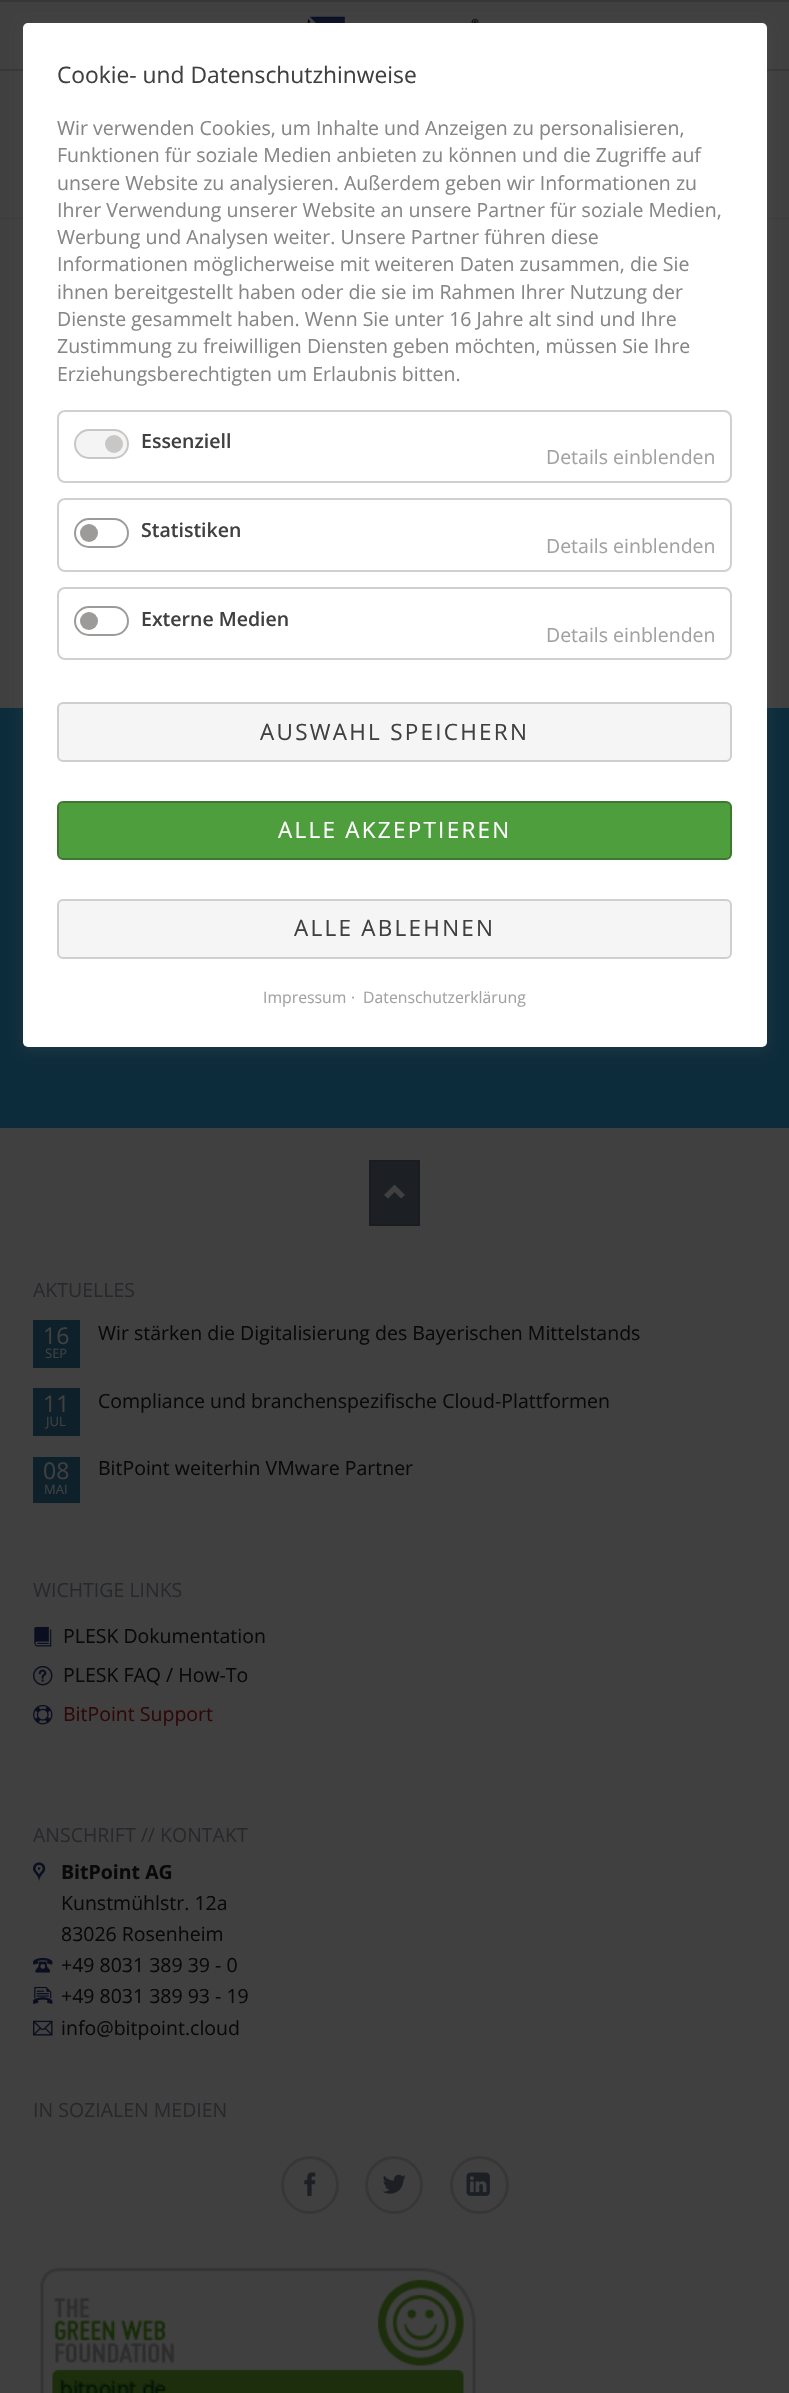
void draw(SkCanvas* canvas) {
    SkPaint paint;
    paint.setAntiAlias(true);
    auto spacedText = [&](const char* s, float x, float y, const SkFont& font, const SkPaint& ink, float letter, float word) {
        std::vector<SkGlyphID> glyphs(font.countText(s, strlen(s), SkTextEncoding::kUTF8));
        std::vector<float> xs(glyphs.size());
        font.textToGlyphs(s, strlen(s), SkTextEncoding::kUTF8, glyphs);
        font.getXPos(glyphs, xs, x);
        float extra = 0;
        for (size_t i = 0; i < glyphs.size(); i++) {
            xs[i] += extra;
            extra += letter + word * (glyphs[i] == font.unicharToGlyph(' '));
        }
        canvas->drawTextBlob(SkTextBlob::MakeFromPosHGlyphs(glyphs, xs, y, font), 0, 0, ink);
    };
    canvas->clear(0xFF404040);
    paint.setColor(0xFF373737);
    canvas->drawRect(SkRect::MakeXYWH(0, 69, 789, 2), paint);
    canvas->drawImageRect(SkImages::DeferredFromEncodedData(SkData::MakeFromFileName("img1.png")), SkRect::MakeXYWH(307, 16, 172, 7), SkSamplingOptions());
    paint.setColor(0xFF3B3B3B);
    canvas->drawRect(SkRect::MakeXYWH(0, 218, 789, 1), paint);
    paint.setColor(0xFF0D2C3B);
    canvas->drawRect(SkRect::MakeXYWH(0, 708, 789, 420), paint);
    paint.setColor(0x33636363);
    paint.setMaskFilter(SkMaskFilter::MakeBlur(kNormal_SkBlurStyle, 6));
    canvas->drawRoundRect(SkRect::MakeXYWH(23, 26, 744, 1024), 5, 5, paint);
    paint.setMaskFilter(nullptr);
    paint.setColor(0xFFFFFFFF);
    canvas->drawRoundRect(SkRect::MakeXYWH(23, 23, 744, 1024), 5, 5, paint);
    SkFont font1(fontMgr->matchFamilyStyle("Open Sans", SkFontStyle::Normal()), 22.8f);
    font1.setSubpixel(true);
    paint.setColor(0xFF404040);
    canvas->drawString("Cookie- und Datenschutzhinweise", 57, 83, font1, paint);
    SkFont font2(fontMgr->matchFamilyStyle("Open Sans", SkFontStyle::Normal()), 19.5f);
    font2.setSubpixel(true);
    paint.setColor(0xFF868686);
    canvas->drawString("Wir verwenden Cookies, um Inhalte und Anzeigen zu personalisieren,", 57, 135, font2, paint);
    canvas->drawString("Funktionen für soziale Medien anbieten zu können und die Zugriffe auf", 57, 162, font2, paint);
    canvas->drawString("unsere Website zu analysieren. Außerdem geben wir Informationen zu", 57, 190, font2, paint);
    canvas->drawString("Ihrer Verwendung unserer Website an unsere Partner für soziale Medien,", 57, 217, font2, paint);
    canvas->drawString("Werbung und Analysen weiter. Unsere Partner führen diese", 57, 244, font2, paint);
    canvas->drawString("Informationen möglicherweise mit weiteren Daten zusammen, die Sie", 57, 271, font2, paint);
    canvas->drawString("ihnen bereitgestellt haben oder die sie im Rahmen Ihrer Nutzung der", 57, 299, font2, paint);
    canvas->drawString("Dienste gesammelt haben. Wenn Sie unter 16 Jahre alt sind und Ihre", 57, 326, font2, paint);
    canvas->drawString("Zustimmung zu freiwilligen Diensten geben möchten, müssen Sie Ihre", 57, 353, font2, paint);
    canvas->drawString("Erziehungsberechtigten um Erlaubnis bitten.", 57, 381, font2, paint);
    paint.setStyle(SkPaint::kStroke_Style);
    paint.setStrokeWidth(2);
    paint.setColor(0xFFD0D0D0);
    canvas->drawRoundRect(SkRect::MakeXYWH(58, 411, 673, 71), 7, 7, paint);
    paint.setStyle(SkPaint::kFill_Style);
    paint.setColor(0xFFF4F4F4);
    canvas->drawRoundRect(SkRect::MakeXYWH(75, 430, 53, 28), 14, 14, paint);
    paint.setStyle(SkPaint::kStroke_Style);
    paint.setColor(0xFFC8C7C5);
    canvas->drawRoundRect(SkRect::MakeXYWH(75, 430, 53, 28), 14, 14, paint);
    SkFont font3(fontMgr->matchFamilyStyle("Open Sans", SkFontStyle(600, SkFontStyle::kNormal_Width, SkFontStyle::kUpright_Slant)), 19.5f);
    font3.setSubpixel(true);
    paint.setStyle(SkPaint::kFill_Style);
    paint.setColor(0xFF404040);
    canvas->drawString("Essenziell", 141, 448, font3, paint);
    paint.setColor(0xFFC8C7C5);
    canvas->drawCircle(114, 444, 9, paint);
    paint.setColor(0xFFA2A2A2);
    canvas->drawString("Details einblenden", 546, 464, font2, paint);
    paint.setStyle(SkPaint::kStroke_Style);
    paint.setColor(0xFFD0D0D0);
    canvas->drawRoundRect(SkRect::MakeXYWH(58, 499, 673, 72), 7, 7, paint);
    paint.setColor(0xFF9C9B99);
    canvas->drawRoundRect(SkRect::MakeXYWH(75, 519, 53, 28), 14, 14, paint);
    paint.setStyle(SkPaint::kFill_Style);
    paint.setColor(0xFF404040);
    canvas->drawString("Statistiken", 141, 537, font3, paint);
    paint.setColor(0xFF9C9B99);
    canvas->drawCircle(89, 533, 9, paint);
    paint.setColor(0xFFA2A2A2);
    canvas->drawString("Details einblenden", 546, 553, font2, paint);
    paint.setStyle(SkPaint::kStroke_Style);
    paint.setColor(0xFFD0D0D0);
    canvas->drawRoundRect(SkRect::MakeXYWH(58, 588, 673, 71), 7, 7, paint);
    paint.setColor(0xFF9C9B99);
    canvas->drawRoundRect(SkRect::MakeXYWH(75, 607, 53, 28), 14, 14, paint);
    paint.setStyle(SkPaint::kFill_Style);
    paint.setColor(0xFF404040);
    canvas->drawString("Externe Medien", 141, 626, font3, paint);
    paint.setColor(0xFF9C9B99);
    canvas->drawCircle(89, 621, 9, paint);
    paint.setColor(0xFFA2A2A2);
    canvas->drawString("Details einblenden", 546, 642, font2, paint);
    paint.setColor(0xFFF5F5F5);
    canvas->drawRoundRect(SkRect::MakeXYWH(58, 703, 673, 58), 5, 5, paint);
    paint.setStyle(SkPaint::kStroke_Style);
    paint.setColor(0xFFCFCFCF);
    canvas->drawRoundRect(SkRect::MakeXYWH(58, 703, 673, 58), 5, 5, paint);
    SkFont font4(fontMgr->matchFamilyStyle("Open Sans", SkFontStyle::Normal()), 22.5f);
    font4.setSubpixel(true);
    paint.setStyle(SkPaint::kFill_Style);
    paint.setColor(0xFF404040);
    spacedText("AUSWAHL SPEICHERN", 260, 740, font4, paint, 2.25f, 0);
    paint.setColor(0xFF4E9E3E);
    canvas->drawRoundRect(SkRect::MakeXYWH(58, 802, 673, 57), 5, 5, paint);
    paint.setStyle(SkPaint::kStroke_Style);
    paint.setColor(0xFF3E7830);
    canvas->drawRoundRect(SkRect::MakeXYWH(58, 802, 673, 57), 5, 5, paint);
    paint.setStyle(SkPaint::kFill_Style);
    paint.setColor(0xFFFFFFFF);
    spacedText("ALLE AKZEPTIEREN", 278, 838, font4, paint, 2.25f, 0);
    paint.setColor(0xFFF5F5F5);
    canvas->drawRoundRect(SkRect::MakeXYWH(58, 900, 673, 58), 5, 5, paint);
    paint.setStyle(SkPaint::kStroke_Style);
    paint.setColor(0xFFCFCFCF);
    canvas->drawRoundRect(SkRect::MakeXYWH(58, 900, 673, 58), 5, 5, paint);
    paint.setStyle(SkPaint::kFill_Style);
    paint.setColor(0xFF404040);
    spacedText("ALLE ABLEHNEN", 294, 936, font4, paint, 2.25f, 0);
    SkFont font5(fontMgr->matchFamilyStyle("Open Sans", SkFontStyle::Normal()), 15.8f);
    font5.setSubpixel(true);
    paint.setColor(0xFFA2A2A2);
    canvas->drawString("Impressum", 263, 1003, font5, paint);
    canvas->drawString("·", 351, 1003, font5, paint);
    canvas->drawString("Datenschutzerklärung", 363, 1003, font5, paint);
    paint.setColor(0xFF373737);
    canvas->drawRect(SkRect::MakeXYWH(0, 0, 789, 2), paint);
    paint.setColor(0xFF1C1F24);
    canvas->drawRect(SkRect::MakeXYWH(370, 1161, 49, 64), paint);
    paint.setStyle(SkPaint::kStroke_Style);
    paint.setColor(0xFF1A1C20);
    canvas->drawRect(SkRect::MakeXYWH(370, 1161, 49, 64), paint);
    paint.setStyle(SkPaint::kFill_Style);
    paint.setColor(0xFF404040);
    canvas->drawPath(SkPathBuilder().moveTo(384, 1195).lineTo(388, 1198.5f).lineTo(394.5f, 1192).lineTo(401, 1198.5f).lineTo(405, 1195).lineTo(394.5f, 1184.5f).close().detach(), paint);
    paint.setColor(0xFF26282B);
    canvas->drawString("AKTUELLES", 33, 1297, font2, paint);
    paint.setColor(0xFF0E212B);
    canvas->drawRect(SkRect::MakeXYWH(33, 1320, 47, 48), paint);
    SkFont font6(fontMgr->matchFamilyStyle("Open Sans", SkFontStyle::Normal()), 23);
    font6.setSubpixel(true);
    paint.setColor(0xFF404040);
    canvas->drawString("16", 43, 1344, font6, paint);
    SkFont font7(fontMgr->matchFamilyStyle("Open Sans", SkFontStyle::Normal()), 13);
    font7.setSubpixel(true);
    canvas->drawString("SEP", 45, 1358, font7, paint);
    paint.setColor(0xFF090909);
    canvas->drawString("Wir stärken die Digitalisierung des Bayerischen Mittelstands", 98, 1340, font2, paint);
    paint.setColor(0xFF0E212B);
    canvas->drawRect(SkRect::MakeXYWH(33, 1388, 47, 48), paint);
    paint.setColor(0xFF404040);
    canvas->drawString("11", 43, 1412, font6, paint);
    canvas->drawString("JUL", 46, 1426, font7, paint);
    paint.setColor(0xFF090909);
    canvas->drawString("Compliance und branchenspezifische Cloud-Plattformen", 98, 1408, font2, paint);
    paint.setColor(0xFF0E212B);
    canvas->drawRect(SkRect::MakeXYWH(33, 1457, 47, 46), paint);
    paint.setColor(0xFF404040);
    canvas->drawString("08", 43, 1479, font6, paint);
    canvas->drawString("MAI", 44, 1494, font7, paint);
    paint.setColor(0xFF090909);
    canvas->drawString("BitPoint weiterhin VMware Partner", 98, 1475, font2, paint);
    paint.setColor(0xFF26282B);
    canvas->drawString("WICHTIGE LINKS", 33, 1597, font2, paint);
    canvas->drawImageRect(SkImages::DeferredFromEncodedData(SkData::MakeFromFileName("img2.png")), SkRect::MakeXYWH(34, 1626, 18, 21), SkSamplingOptions());
    paint.setColor(0xFF090909);
    canvas->drawString("PLESK Dokumentation", 63, 1643, font2, paint);
    canvas->drawImageRect(SkImages::DeferredFromEncodedData(SkData::MakeFromFileName("img3.png")), SkRect::MakeXYWH(33, 1665, 20, 21), SkSamplingOptions());
    canvas->drawString("PLESK FAQ / How-To", 63, 1682, font2, paint);
    canvas->drawImageRect(SkImages::DeferredFromEncodedData(SkData::MakeFromFileName("img4.png")), SkRect::MakeXYWH(33, 1704, 20, 21), SkSamplingOptions());
    paint.setColor(0xFF2F0707);
    canvas->drawString("BitPoint Support", 63, 1721, font2, paint);
    paint.setColor(0xFF26282B);
    canvas->drawString("ANSCHRIFT // KONTAKT", 33, 1842, font2, paint);
    canvas->drawImageRect(SkImages::DeferredFromEncodedData(SkData::MakeFromFileName("img5.png")), SkRect::MakeXYWH(33, 1862, 13, 20), SkSamplingOptions());
    SkFont font8(fontMgr->matchFamilyStyle("Open Sans", SkFontStyle::Bold()), 19.5f);
    font8.setSubpixel(true);
    paint.setColor(0xFF090909);
    canvas->drawString("BitPoint AG", 61, 1879, font8, paint);
    canvas->drawString("Kunstmühlstr. 12a", 61, 1910, font2, paint);
    canvas->drawString("83026 Rosenheim", 61, 1941, font2, paint);
    canvas->drawImageRect(SkImages::DeferredFromEncodedData(SkData::MakeFromFileName("img6.png")), SkRect::MakeXYWH(33, 1957, 20, 16), SkSamplingOptions());
    canvas->drawString("+49 8031 389 39 - 0", 61, 1972, font2, paint);
    canvas->drawImageRect(SkImages::DeferredFromEncodedData(SkData::MakeFromFileName("img7.png")), SkRect::MakeXYWH(33, 1986, 20, 18), SkSamplingOptions());
    canvas->drawString("+49 8031 389 93 - 19", 61, 2003, font2, paint);
    canvas->drawImageRect(SkImages::DeferredFromEncodedData(SkData::MakeFromFileName("img8.png")), SkRect::MakeXYWH(33, 2020, 20, 16), SkSamplingOptions());
    canvas->drawString("info@bitpoint.cloud", 61, 2035, font2, paint);
    paint.setColor(0xFF26282B);
    canvas->drawString("IN SOZIALEN MEDIEN", 33, 2117, font2, paint);
    paint.setStyle(SkPaint::kStroke_Style);
    paint.setStrokeWidth(3);
    paint.setColor(0xFF373737);
    canvas->drawCircle(310, 2185, 27.5f, paint);
    canvas->drawImageRect(SkImages::DeferredFromEncodedData(SkData::MakeFromFileName("img9.png")), SkRect::MakeXYWH(304, 2172, 12, 24), SkSamplingOptions());
    canvas->drawCircle(394, 2185, 27.5f, paint);
    canvas->drawImageRect(SkImages::DeferredFromEncodedData(SkData::MakeFromFileName("img10.png")), SkRect::MakeXYWH(382, 2174, 24, 20), SkSamplingOptions());
    canvas->drawRoundRect(SkRect::MakeXYWH(451.5f, 2157.5f, 56, 55), 27.5f, 27.5f, paint);
    canvas->drawImageRect(SkImages::DeferredFromEncodedData(SkData::MakeFromFileName("img11.png")), SkRect::MakeXYWH(466, 2172, 24, 24), SkSamplingOptions());
    canvas->drawImageRect(SkImages::DeferredFromEncodedData(SkData::MakeFromFileName("img12.png")), SkRect::MakeXYWH(40, 2267, 436, 126), SkSamplingOptions());
}
